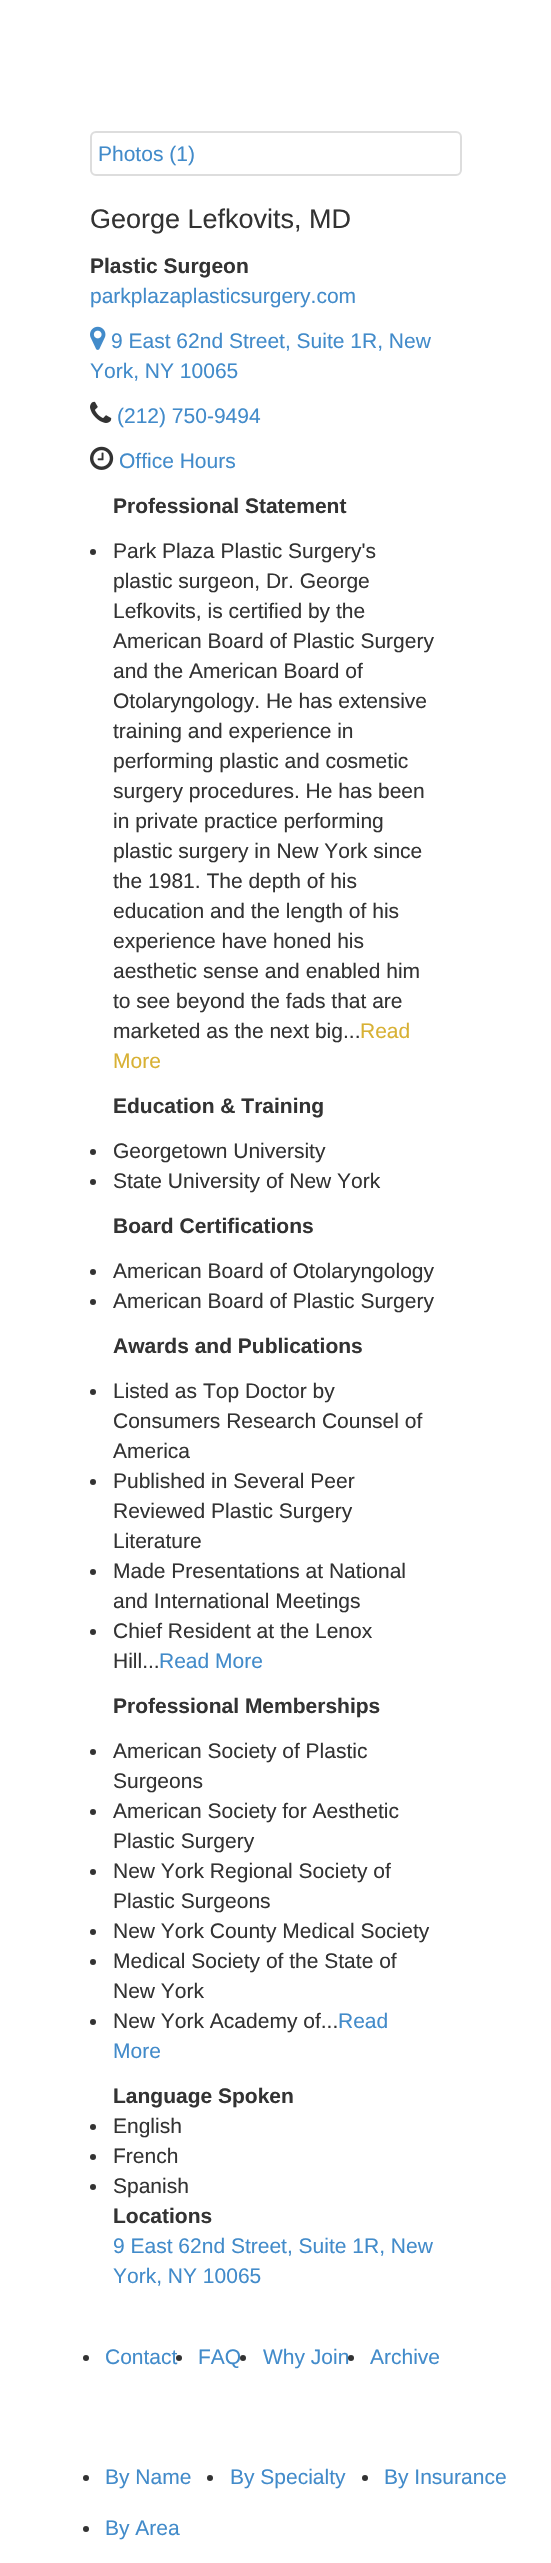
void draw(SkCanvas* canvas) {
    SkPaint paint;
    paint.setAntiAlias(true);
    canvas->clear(0xFFFFFFFF);
    paint.setStyle(SkPaint::kStroke_Style);
    paint.setStrokeWidth(2);
    paint.setColor(0xFFDDDDDD);
    canvas->drawRoundRect(SkRect::MakeXYWH(91, 132, 370, 43), 5, 5, paint);
    SkFont font1(fontMgr->matchFamilyStyle("Liberation Sans", SkFontStyle::Normal()), 21);
    font1.setSubpixel(true);
    paint.setStyle(SkPaint::kFill_Style);
    paint.setColor(0xFF428BCA);
    canvas->drawString("Photos (1)", 98, 161, font1, paint);
    SkFont font2(fontMgr->matchFamilyStyle("Liberation Sans", SkFontStyle::Normal()), 27);
    font2.setSubpixel(true);
    paint.setColor(0xFF333333);
    canvas->drawString("George Lefkovits, MD", 90, 228, font2, paint);
    SkFont font3(fontMgr->matchFamilyStyle("Liberation Sans", SkFontStyle::Bold()), 21);
    font3.setSubpixel(true);
    canvas->drawString("Plastic Surgeon", 90, 273, font3, paint);
    paint.setColor(0xFF428BCA);
    canvas->drawString("parkplazaplasticsurgery.com", 90, 303, font1, paint);
    canvas->drawImageRect(SkImages::DeferredFromEncodedData(SkData::MakeFromFileName("img1.png")), SkRect::MakeXYWH(90, 326, 16, 24), SkSamplingOptions());
    canvas->drawString("9 East 62nd Street, Suite 1R, New", 111, 348, font1, paint);
    canvas->drawString("York, NY 10065", 90, 378, font1, paint);
    canvas->drawImageRect(SkImages::DeferredFromEncodedData(SkData::MakeFromFileName("img2.png")), SkRect::MakeXYWH(90, 401, 22, 22), SkSamplingOptions());
    canvas->drawString("(212) 750-9494", 117, 423, font1, paint);
    canvas->drawImageRect(SkImages::DeferredFromEncodedData(SkData::MakeFromFileName("img3.png")), SkRect::MakeXYWH(90, 446, 24, 24), SkSamplingOptions());
    canvas->drawString("Office Hours", 119, 468, font1, paint);
    paint.setColor(0xFF333333);
    canvas->drawString("Professional Statement", 113, 513, font3, paint);
    canvas->drawCircle(93, 552, 3, paint);
    canvas->drawString("Park Plaza Plastic Surgery's", 113, 558, font1, paint);
    canvas->drawString("plastic surgeon, Dr. George", 113, 588, font1, paint);
    canvas->drawString("Lefkovits, is certified by the", 113, 618, font1, paint);
    canvas->drawString("American Board of Plastic Surgery", 113, 648, font1, paint);
    canvas->drawString("and the American Board of", 113, 678, font1, paint);
    canvas->drawString("Otolaryngology. He has extensive", 113, 708, font1, paint);
    canvas->drawString("training and experience in", 113, 738, font1, paint);
    canvas->drawString("performing plastic and cosmetic", 113, 768, font1, paint);
    canvas->drawString("surgery procedures. He has been", 113, 798, font1, paint);
    canvas->drawString("in private practice performing", 113, 828, font1, paint);
    canvas->drawString("plastic surgery in New York since", 113, 858, font1, paint);
    canvas->drawString("the 1981. The depth of his", 113, 888, font1, paint);
    canvas->drawString("education and the length of his", 113, 918, font1, paint);
    canvas->drawString("experience have honed his", 113, 948, font1, paint);
    canvas->drawString("aesthetic sense and enabled him", 113, 978, font1, paint);
    canvas->drawString("to see beyond the fads that are", 113, 1008, font1, paint);
    canvas->drawString("marketed as the next big...", 113, 1038, font1, paint);
    paint.setColor(0xFFD8B134);
    canvas->drawString("Read", 360, 1038, font1, paint);
    canvas->drawString("More", 113, 1068, font1, paint);
    paint.setColor(0xFF333333);
    canvas->drawString("Education & Training", 113, 1113, font3, paint);
    canvas->drawCircle(93, 1152, 3, paint);
    canvas->drawString("Georgetown University", 113, 1158, font1, paint);
    canvas->drawCircle(93, 1182, 3, paint);
    canvas->drawString("State University of New York", 113, 1188, font1, paint);
    canvas->drawString("Board Certifications", 113, 1233, font3, paint);
    canvas->drawCircle(93, 1272, 3, paint);
    canvas->drawString("American Board of Otolaryngology", 113, 1278, font1, paint);
    canvas->drawCircle(93, 1302, 3, paint);
    canvas->drawString("American Board of Plastic Surgery", 113, 1308, font1, paint);
    canvas->drawString("Awards and Publications", 113, 1353, font3, paint);
    canvas->drawCircle(93, 1392, 3, paint);
    canvas->drawString("Listed as Top Doctor by", 113, 1398, font1, paint);
    canvas->drawString("Consumers Research Counsel of", 113, 1428, font1, paint);
    canvas->drawString("America", 113, 1458, font1, paint);
    canvas->drawCircle(93, 1482, 3, paint);
    canvas->drawString("Published in Several Peer", 113, 1488, font1, paint);
    canvas->drawString("Reviewed Plastic Surgery", 113, 1518, font1, paint);
    canvas->drawString("Literature", 113, 1548, font1, paint);
    canvas->drawCircle(93, 1572, 3, paint);
    canvas->drawString("Made Presentations at National", 113, 1578, font1, paint);
    canvas->drawString("and International Meetings", 113, 1608, font1, paint);
    canvas->drawCircle(93, 1632, 3, paint);
    canvas->drawString("Chief Resident at the Lenox", 113, 1638, font1, paint);
    canvas->drawString("Hill...", 113, 1668, font1, paint);
    paint.setColor(0xFF428BCA);
    canvas->drawString("Read More", 159, 1668, font1, paint);
    paint.setColor(0xFF333333);
    canvas->drawString("Professional Memberships", 113, 1713, font3, paint);
    canvas->drawCircle(93, 1752, 3, paint);
    canvas->drawString("American Society of Plastic", 113, 1758, font1, paint);
    canvas->drawString("Surgeons", 113, 1788, font1, paint);
    canvas->drawCircle(93, 1812, 3, paint);
    canvas->drawString("American Society for Aesthetic", 113, 1818, font1, paint);
    canvas->drawString("Plastic Surgery", 113, 1848, font1, paint);
    canvas->drawCircle(93, 1872, 3, paint);
    canvas->drawString("New York Regional Society of", 113, 1878, font1, paint);
    canvas->drawString("Plastic Surgeons", 113, 1908, font1, paint);
    canvas->drawCircle(93, 1932, 3, paint);
    canvas->drawString("New York County Medical Society", 113, 1938, font1, paint);
    canvas->drawCircle(93, 1962, 3, paint);
    canvas->drawString("Medical Society of the State of", 113, 1968, font1, paint);
    canvas->drawString("New York", 113, 1998, font1, paint);
    canvas->drawCircle(93, 2022, 3, paint);
    canvas->drawString("New York Academy of...", 113, 2028, font1, paint);
    paint.setColor(0xFF428BCA);
    canvas->drawString("Read", 338, 2028, font1, paint);
    canvas->drawString("More", 113, 2058, font1, paint);
    paint.setColor(0xFF333333);
    canvas->drawString("Language Spoken", 113, 2103, font3, paint);
    canvas->drawCircle(93, 2127, 3, paint);
    canvas->drawString("English", 113, 2133, font1, paint);
    canvas->drawCircle(93, 2157, 3, paint);
    canvas->drawString("French", 113, 2163, font1, paint);
    canvas->drawCircle(93, 2187, 3, paint);
    canvas->drawString("Spanish", 113, 2193, font1, paint);
    canvas->drawString("Locations", 113, 2223, font3, paint);
    paint.setColor(0xFF428BCA);
    canvas->drawString("9 East 62nd Street, Suite 1R, New", 113, 2253, font1, paint);
    canvas->drawString("York, NY 10065", 113, 2283, font1, paint);
    paint.setColor(0xFF333333);
    canvas->drawCircle(86, 2358, 3, paint);
    paint.setColor(0xFF428BCA);
    canvas->drawString("Contact", 105, 2364, font1, paint);
    paint.setColor(0xFF333333);
    canvas->drawCircle(179, 2358, 3, paint);
    paint.setColor(0xFF428BCA);
    canvas->drawString("FAQ", 198, 2364, font1, paint);
    paint.setColor(0xFF333333);
    canvas->drawCircle(243, 2358, 3, paint);
    paint.setColor(0xFF428BCA);
    canvas->drawString("Why Join", 263, 2364, font1, paint);
    paint.setColor(0xFF333333);
    canvas->drawCircle(351, 2358, 3, paint);
    paint.setColor(0xFF428BCA);
    canvas->drawString("Archive", 370, 2364, font1, paint);
    paint.setColor(0xFF333333);
    canvas->drawCircle(86, 2478, 3, paint);
    paint.setColor(0xFF428BCA);
    canvas->drawString("By Name", 105, 2484, font1, paint);
    paint.setColor(0xFF333333);
    canvas->drawCircle(210, 2478, 3, paint);
    paint.setColor(0xFF428BCA);
    canvas->drawString("By Specialty", 230, 2484, font1, paint);
    paint.setColor(0xFF333333);
    canvas->drawCircle(365, 2478, 3, paint);
    paint.setColor(0xFF428BCA);
    canvas->drawString("By Insurance", 384, 2484, font1, paint);
    paint.setColor(0xFF333333);
    canvas->drawCircle(86, 2529, 3, paint);
    paint.setColor(0xFF428BCA);
    canvas->drawString("By Area", 105, 2535, font1, paint);
}
